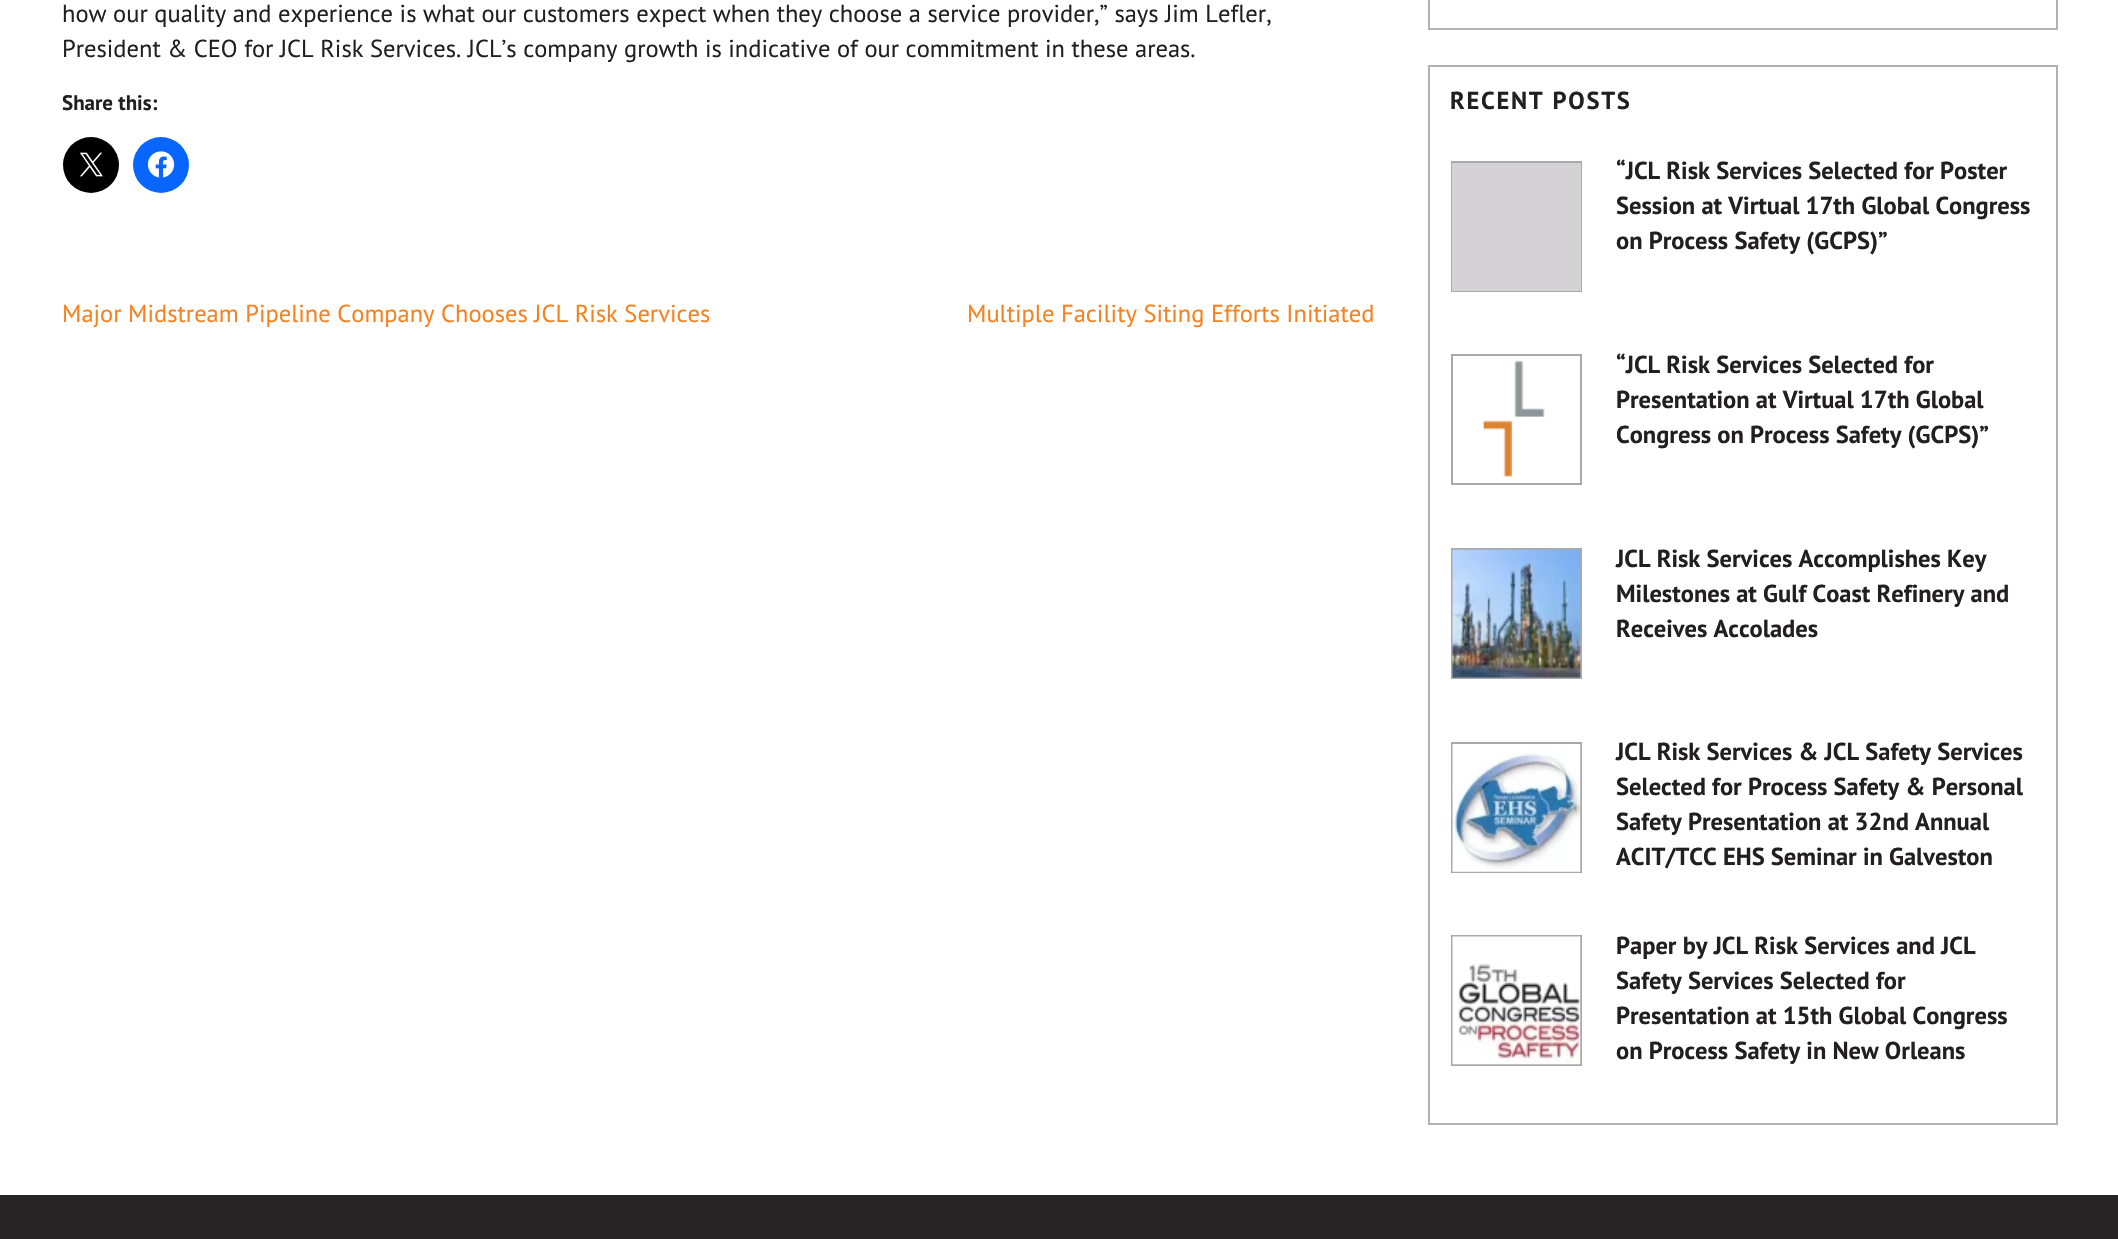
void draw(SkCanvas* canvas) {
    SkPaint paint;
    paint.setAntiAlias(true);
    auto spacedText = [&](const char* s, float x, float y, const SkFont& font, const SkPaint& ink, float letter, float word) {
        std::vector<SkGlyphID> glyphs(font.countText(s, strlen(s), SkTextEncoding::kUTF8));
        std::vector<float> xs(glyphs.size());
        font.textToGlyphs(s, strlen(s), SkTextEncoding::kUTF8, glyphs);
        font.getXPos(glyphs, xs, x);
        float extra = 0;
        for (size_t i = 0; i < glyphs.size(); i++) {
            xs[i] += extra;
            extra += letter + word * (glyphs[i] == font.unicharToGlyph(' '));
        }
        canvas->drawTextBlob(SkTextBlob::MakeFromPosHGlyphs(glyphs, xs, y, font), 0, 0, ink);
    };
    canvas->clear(0xFFFFFFFF);
    SkFont font1(fontMgr->matchFamilyStyle("PT Sans", SkFontStyle::Normal()), 24.5f);
    font1.setSubpixel(true);
    paint.setColor(0xFF231F20);
    canvas->drawString("how our quality and experience is what our customers expect when they choose a service provider,” says Jim Lefler,", 62, 22, font1, paint);
    canvas->drawString("President & CEO for JCL Risk Services. JCL’s company growth is indicative of our commitment in these areas.", 62, 57, font1, paint);
    SkFont font2(fontMgr->matchFamilyStyle("PT Sans", SkFontStyle::Bold()), 21);
    font2.setSubpixel(true);
    canvas->drawString("Share this:", 62, 110, font2, paint);
    paint.setColor(0xFF000000);
    canvas->drawCircle(91, 165, 28, paint);
    canvas->drawImageRect(SkImages::DeferredFromEncodedData(SkData::MakeFromFileName("img1.png")), SkRect::MakeXYWH(80, 152, 23, 25), SkSamplingOptions());
    paint.setColor(0xFF0866FF);
    canvas->drawCircle(161, 165, 28, paint);
    canvas->drawImageRect(SkImages::DeferredFromEncodedData(SkData::MakeFromFileName("img2.png")), SkRect::MakeXYWH(147, 151, 28, 27), SkSamplingOptions());
    paint.setColor(0xFFF5821F);
    canvas->drawString("Major Midstream Pipeline Company Chooses JCL Risk Services", 62, 322, font1, paint);
    canvas->drawString("Multiple Facility Siting Efforts Initiated", 967, 322, font1, paint);
    paint.setStyle(SkPaint::kStroke_Style);
    paint.setStrokeWidth(2);
    paint.setColor(0xFFB0B2B5);
    canvas->drawRect(SkRect::MakeXYWH(1429, -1, 628, 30), paint);
    canvas->drawRect(SkRect::MakeXYWH(1429, 66, 628, 1058), paint);
    SkFont font3(fontMgr->matchFamilyStyle("PT Sans", SkFontStyle::Bold()), 24.5f);
    font3.setSubpixel(true);
    paint.setStyle(SkPaint::kFill_Style);
    paint.setColor(0xFF231F20);
    spacedText("RECENT POSTS", 1450, 109, font3, paint, 1.75f, 0);
    paint.setStyle(SkPaint::kStroke_Style);
    paint.setColor(0xFFA7A9AC);
    canvas->drawRect(SkRect::MakeXYWH(1452, 162, 129, 129), paint);
    paint.setStyle(SkPaint::kFill_Style);
    paint.setColor(0xFFD4D2D4);
    canvas->drawRect(SkRect::MakeXYWH(1452, 163, 129, 128), paint);
    paint.setColor(0xFF231F20);
    canvas->drawString("“JCL Risk Services Selected for Poster", 1616, 179, font3, paint);
    canvas->drawString("Session at Virtual 17th Global Congress", 1616, 214, font3, paint);
    canvas->drawString("on Process Safety (GCPS)”", 1616, 249, font3, paint);
    paint.setStyle(SkPaint::kStroke_Style);
    paint.setColor(0xFFA7A9AC);
    canvas->drawRect(SkRect::MakeXYWH(1452, 355, 129, 129), paint);
    canvas->drawImageRect(SkImages::DeferredFromEncodedData(SkData::MakeFromFileName("img3.png")), SkRect::MakeXYWH(1483, 360, 62, 117), SkSamplingOptions());
    paint.setStyle(SkPaint::kFill_Style);
    paint.setColor(0xFF231F20);
    canvas->drawString("“JCL Risk Services Selected for", 1616, 373, font3, paint);
    canvas->drawString("Presentation at Virtual 17th Global", 1616, 408, font3, paint);
    canvas->drawString("Congress on Process Safety (GCPS)”", 1616, 443, font3, paint);
    paint.setStyle(SkPaint::kStroke_Style);
    paint.setColor(0xFFA7A9AC);
    canvas->drawRect(SkRect::MakeXYWH(1452, 549, 129, 129), paint);
    canvas->drawImageRect(SkImages::DeferredFromEncodedData(SkData::MakeFromFileName("img4.png")), SkRect::MakeXYWH(1452, 549, 129, 129), SkSamplingOptions());
    paint.setStyle(SkPaint::kFill_Style);
    paint.setColor(0xFF231F20);
    canvas->drawString("JCL Risk Services Accomplishes Key", 1616, 567, font3, paint);
    canvas->drawString("Milestones at Gulf Coast Refinery and", 1616, 602, font3, paint);
    canvas->drawString("Receives Accolades", 1616, 637, font3, paint);
    paint.setStyle(SkPaint::kStroke_Style);
    paint.setColor(0xFFA7A9AC);
    canvas->drawRect(SkRect::MakeXYWH(1452, 743, 129, 129), paint);
    canvas->drawImageRect(SkImages::DeferredFromEncodedData(SkData::MakeFromFileName("img5.png")), SkRect::MakeXYWH(1452, 744, 129, 128), SkSamplingOptions());
    paint.setStyle(SkPaint::kFill_Style);
    paint.setColor(0xFF231F20);
    canvas->drawString("JCL Risk Services & JCL Safety Services", 1616, 760, font3, paint);
    canvas->drawString("Selected for Process Safety & Personal", 1616, 795, font3, paint);
    canvas->drawString("Safety Presentation at 32nd Annual", 1616, 830, font3, paint);
    canvas->drawString("ACIT/TCC EHS Seminar in Galveston", 1616, 865, font3, paint);
    paint.setStyle(SkPaint::kStroke_Style);
    paint.setColor(0xFFA7A9AC);
    canvas->drawRect(SkRect::MakeXYWH(1452, 936, 129, 129), paint);
    canvas->drawImageRect(SkImages::DeferredFromEncodedData(SkData::MakeFromFileName("img6.png")), SkRect::MakeXYWH(1452, 936, 129, 129), SkSamplingOptions());
    paint.setStyle(SkPaint::kFill_Style);
    paint.setColor(0xFF231F20);
    canvas->drawString("Paper by JCL Risk Services and JCL", 1616, 954, font3, paint);
    canvas->drawString("Safety Services Selected for", 1616, 989, font3, paint);
    canvas->drawString("Presentation at 15th Global Congress", 1616, 1024, font3, paint);
    canvas->drawString("on Process Safety in New Orleans", 1616, 1059, font3, paint);
    paint.setColor(0xFF272425);
    canvas->drawRect(SkRect::MakeXYWH(0, 1195, 2118, 44), paint);
}
